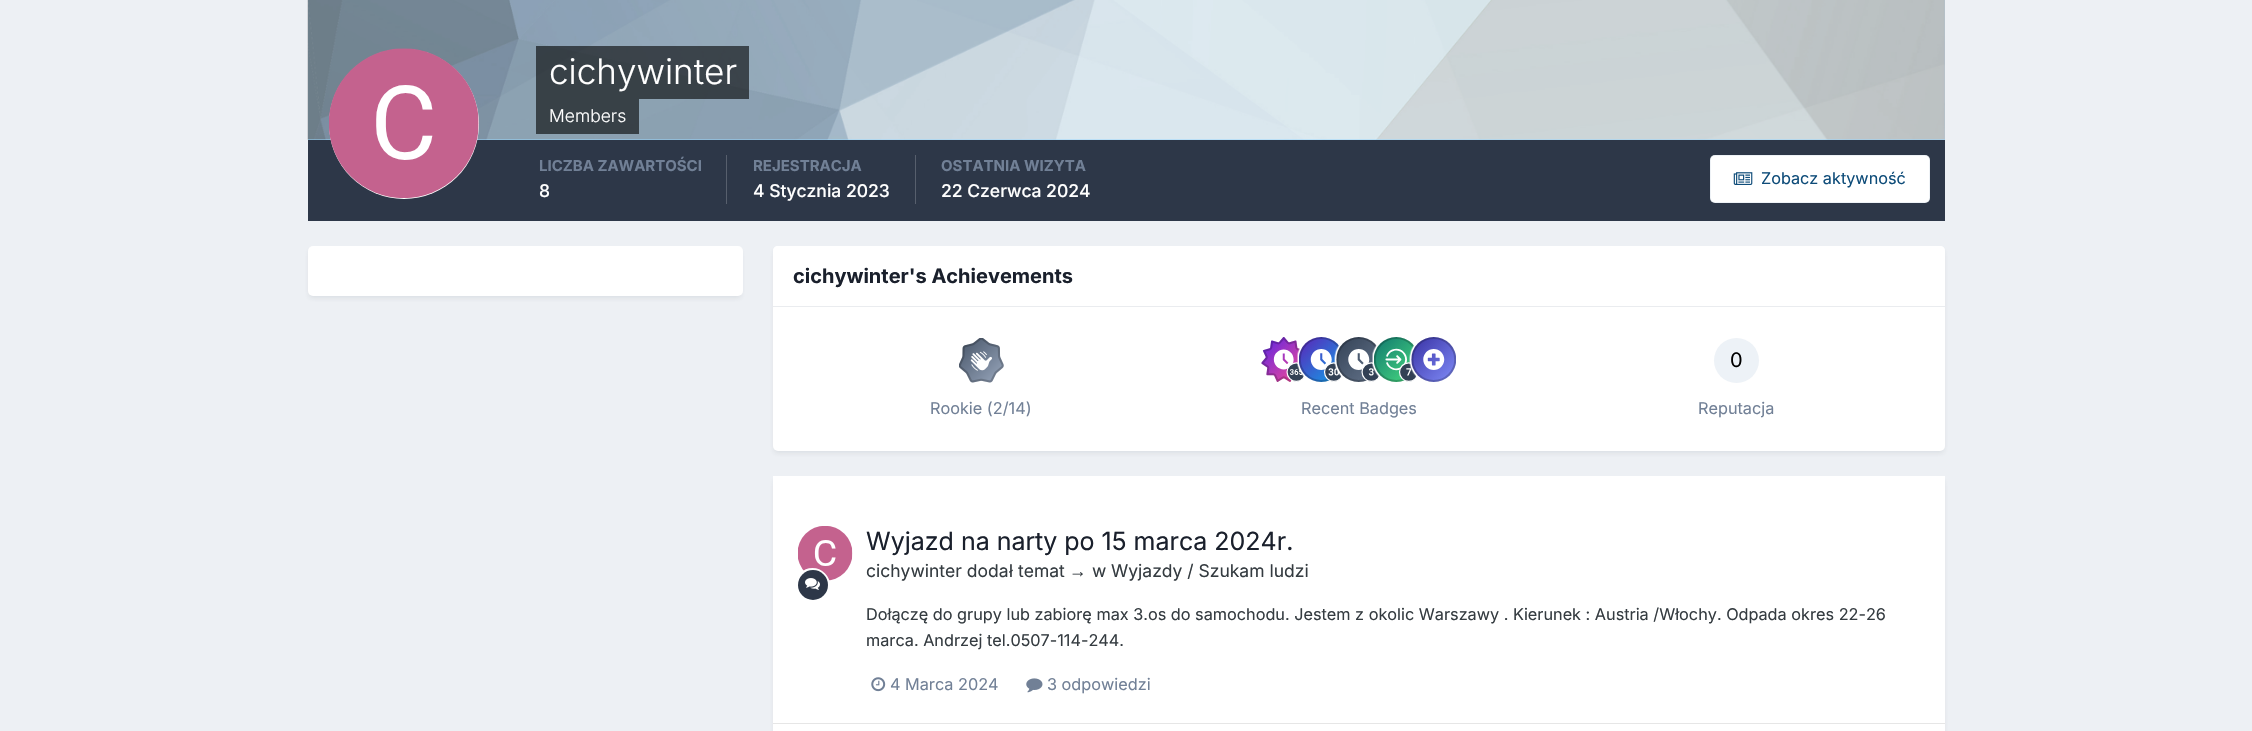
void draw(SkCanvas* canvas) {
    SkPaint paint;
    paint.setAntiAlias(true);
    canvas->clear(0xFFEDF0F4);
    paint.setColor(0xFF99D8FF);
    canvas->drawRect(SkRect::MakeXYWH(308, 0, 1637, 140), paint);
    canvas->drawImageRect(SkImages::DeferredFromEncodedData(SkData::MakeFromFileName("img1.png")), SkRect::MakeXYWH(307, 0, 1638, 140), SkSamplingOptions());
    paint.setColor(0xFF2D3748);
    canvas->drawRect(SkRect::MakeXYWH(308, 140, 1637, 81), paint);
    paint.setColor(0xFFFFFFFF);
    canvas->drawCircle(404, 124, 75, paint);
    canvas->drawImageRect(SkImages::DeferredFromEncodedData(SkData::MakeFromFileName("img2.png")), SkRect::MakeXYWH(329, 48, 150, 150), SkSamplingOptions());
    paint.setColor(0x99000000);
    canvas->drawRect(SkRect::MakeXYWH(536, 46, 213, 53), paint);
    SkFont font1(fontMgr->matchFamilyStyle("Inter", SkFontStyle(300, SkFontStyle::kNormal_Width, SkFontStyle::kUpright_Slant)), 35);
    font1.setSubpixel(true);
    paint.setColor(0xFFFFFFFF);
    canvas->drawString("cichywinter", 549, 84, font1, paint);
    paint.setColor(0x99000000);
    canvas->drawRect(SkRect::MakeXYWH(536, 99, 103, 35), paint);
    SkFont font2(fontMgr->matchFamilyStyle("Inter", SkFontStyle(300, SkFontStyle::kNormal_Width, SkFontStyle::kUpright_Slant)), 17.5f);
    font2.setSubpixel(true);
    paint.setColor(0xFFFFFFFF);
    canvas->drawString("Members", 549, 122, font2, paint);
    paint.setColor(0xFF575F6D);
    canvas->drawRect(SkRect::MakeXYWH(726, 155, 1, 49), paint);
    SkFont font3(fontMgr->matchFamilyStyle("Inter", SkFontStyle::Bold()), 15);
    font3.setSubpixel(true);
    paint.setColor(0xFF718096);
    canvas->drawString("LICZBA ZAWARTOŚCI", 539, 171, font3, paint);
    SkFont font4(fontMgr->matchFamilyStyle("Inter", SkFontStyle(500, SkFontStyle::kNormal_Width, SkFontStyle::kUpright_Slant)), 17.5f);
    font4.setSubpixel(true);
    paint.setColor(0xFFFFFFFF);
    canvas->drawString("8", 539, 197, font4, paint);
    paint.setColor(0xFF575F6D);
    canvas->drawRect(SkRect::MakeXYWH(915, 155, 1, 49), paint);
    paint.setColor(0xFF718096);
    canvas->drawString("REJESTRACJA", 753, 171, font3, paint);
    paint.setColor(0xFFFFFFFF);
    canvas->drawString("4 Stycznia 2023", 753, 197, font4, paint);
    paint.setColor(0xFF718096);
    canvas->drawString("OSTATNIA WIZYTA", 941, 171, font3, paint);
    paint.setColor(0xFFFFFFFF);
    canvas->drawString("22 Czerwca 2024", 941, 197, font4, paint);
    canvas->drawRoundRect(SkRect::MakeXYWH(1710, 155, 220, 48), 5, 5, paint);
    paint.setStyle(SkPaint::kStroke_Style);
    paint.setStrokeWidth(1);
    paint.setColor(0x120E4C79);
    canvas->drawRoundRect(SkRect::MakeXYWH(1710.5f, 155.5f, 219, 47), 4.5f, 4.5f, paint);
    canvas->drawImageRect(SkImages::DeferredFromEncodedData(SkData::MakeFromFileName("img3.png")), SkRect::MakeXYWH(1733, 172, 20, 13), SkSamplingOptions());
    SkFont font5(fontMgr->matchFamilyStyle("Inter", SkFontStyle::Normal()), 16.25f);
    font5.setSubpixel(true);
    paint.setStyle(SkPaint::kFill_Style);
    paint.setColor(0xFF0E4C79);
    canvas->drawString("Zobacz aktywność", 1761, 184, font5, paint);
    paint.setColor(0x1A2D3748);
    paint.setMaskFilter(SkMaskFilter::MakeBlur(kNormal_SkBlurStyle, 2.5f));
    canvas->drawRoundRect(SkRect::MakeXYWH(309, 250, 432, 48), 4, 4, paint);
    paint.setMaskFilter(nullptr);
    paint.setColor(0xFFFFFFFF);
    canvas->drawRoundRect(SkRect::MakeXYWH(308, 246, 435, 50), 5, 5, paint);
    paint.setColor(0x1A2D3748);
    paint.setMaskFilter(SkMaskFilter::MakeBlur(kNormal_SkBlurStyle, 2.5f));
    canvas->drawRoundRect(SkRect::MakeXYWH(774, 250, 1170, 203), 4, 4, paint);
    paint.setMaskFilter(nullptr);
    paint.setColor(0xFFFFFFFF);
    canvas->drawRoundRect(SkRect::MakeXYWH(773, 246, 1172, 205), 5, 5, paint);
    canvas->drawPath(SkPathBuilder().moveTo(778, 246).lineTo(1940, 246).cubicTo(1943, 246, 1945, 248, 1945, 251).lineTo(1945, 308).lineTo(773, 308).lineTo(773, 251).cubicTo(773, 248, 775, 246, 778, 246).close().detach(), paint);
    paint.setColor(0xFFEAECEF);
    canvas->drawRect(SkRect::MakeXYWH(773, 306, 1172, 1), paint);
    SkFont font6(fontMgr->matchFamilyStyle("Inter", SkFontStyle::Bold()), 20);
    font6.setSubpixel(true);
    paint.setColor(0xFF1A202C);
    canvas->drawString("cichywinter's Achievements", 793, 283, font6, paint);
    canvas->drawImageRect(SkImages::DeferredFromEncodedData(SkData::MakeFromFileName("img4.png")), SkRect::MakeXYWH(959, 338, 45, 45), SkSamplingOptions());
    paint.setColor(0xFF718096);
    canvas->drawString("Rookie (2/14)", 930, 414, font5, paint);
    canvas->drawImageRect(SkImages::DeferredFromEncodedData(SkData::MakeFromFileName("img5.png")), SkRect::MakeXYWH(1261, 337, 45, 45), SkSamplingOptions());
    canvas->drawImageRect(SkImages::DeferredFromEncodedData(SkData::MakeFromFileName("img6.png")), SkRect::MakeXYWH(1297, 337, 47, 45), SkSamplingOptions());
    canvas->drawImageRect(SkImages::DeferredFromEncodedData(SkData::MakeFromFileName("img7.png")), SkRect::MakeXYWH(1334, 337, 47, 45), SkSamplingOptions());
    canvas->drawImageRect(SkImages::DeferredFromEncodedData(SkData::MakeFromFileName("img8.png")), SkRect::MakeXYWH(1372, 337, 47, 45), SkSamplingOptions());
    canvas->drawImageRect(SkImages::DeferredFromEncodedData(SkData::MakeFromFileName("img9.png")), SkRect::MakeXYWH(1409, 337, 47, 45), SkSamplingOptions());
    canvas->drawString("Recent Badges", 1301, 414, font5, paint);
    paint.setColor(0xFFEDF2F7);
    canvas->drawCircle(1736.5f, 360.5f, 22.5f, paint);
    SkFont font7(fontMgr->matchFamilyStyle("Inter", SkFontStyle::Normal()), 20);
    font7.setSubpixel(true);
    paint.setColor(0xFF000000);
    canvas->drawString("0", 1730, 367, font7, paint);
    paint.setColor(0xFF718096);
    canvas->drawString("Reputacja", 1698, 414, font5, paint);
    paint.setColor(0x1A2D3748);
    paint.setMaskFilter(SkMaskFilter::MakeBlur(kNormal_SkBlurStyle, 2.5f));
    canvas->drawRoundRect(SkRect::MakeXYWH(774, 480, 1170, 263), 4, 4, paint);
    paint.setMaskFilter(nullptr);
    paint.setColor(0xFFFFFFFF);
    canvas->drawRect(SkRect::MakeXYWH(773, 476, 1172, 255), paint);
    paint.setColor(0xFFE6E6E6);
    canvas->drawRect(SkRect::MakeXYWH(773, 723, 1172, 1), paint);
    canvas->drawImageRect(SkImages::DeferredFromEncodedData(SkData::MakeFromFileName("img10.png")), SkRect::MakeXYWH(798, 526, 55, 55), SkSamplingOptions());
    SkFont font8(fontMgr->matchFamilyStyle("Inter", SkFontStyle::Normal()), 25);
    font8.setSubpixel(true);
    paint.setColor(0xFF1A202C);
    canvas->drawString("Wyjazd na narty po 15 marca 2024r.", 866, 550, font8, paint);
    SkFont font9(fontMgr->matchFamilyStyle("Inter", SkFontStyle::Normal()), 17.5f);
    font9.setSubpixel(true);
    paint.setColor(0xFF353C41);
    canvas->drawString("cichywinter doda", 866, 577, font9, paint);
    SkFont font10(fontMgr->matchFamilyStyle("Liberation Sans", SkFontStyle::Normal()), 17.5f);
    font10.setSubpixel(true);
    canvas->drawString("ł", 1009, 577, font10, paint);
    canvas->drawString("temat", 1018, 577, font9, paint);
    canvas->drawString("→", 1069, 577, font10, paint);
    canvas->drawString("w", 1092, 577, font9, paint);
    canvas->drawString("Wyjazdy / Szukam ludzi", 1111, 577, font9, paint);
    paint.setStyle(SkPaint::kStroke_Style);
    paint.setStrokeWidth(3);
    paint.setColor(0xFFFFFFFF);
    canvas->drawCircle(812.5f, 585.5f, 16, paint);
    paint.setStyle(SkPaint::kFill_Style);
    paint.setColor(0xFF2D3748);
    canvas->drawCircle(813, 585, 15, paint);
    canvas->drawImageRect(SkImages::DeferredFromEncodedData(SkData::MakeFromFileName("img11.png")), SkRect::MakeXYWH(805, 578, 15, 12), SkSamplingOptions());
    paint.setColor(0xFF353C41);
    canvas->drawString("Dołączę do grupy lub zabiorę max 3.os do samochodu. Jestem z okolic Warszawy . Kierunek : Austria /Włochy. Odpada okres 22-26", 866, 620, font5, paint);
    canvas->drawString("marca. Andrzej tel.0507-114-244.", 866, 646, font5, paint);
    canvas->drawImageRect(SkImages::DeferredFromEncodedData(SkData::MakeFromFileName("img12.png")), SkRect::MakeXYWH(871, 677, 15, 15), SkSamplingOptions());
    paint.setColor(0xFF718096);
    canvas->drawString("4 Marca 2024", 890, 690, font5, paint);
    canvas->drawImageRect(SkImages::DeferredFromEncodedData(SkData::MakeFromFileName("img13.png")), SkRect::MakeXYWH(1026, 678, 17, 15), SkSamplingOptions());
    canvas->drawString("3 odpowiedzi", 1047, 690, font5, paint);
}
